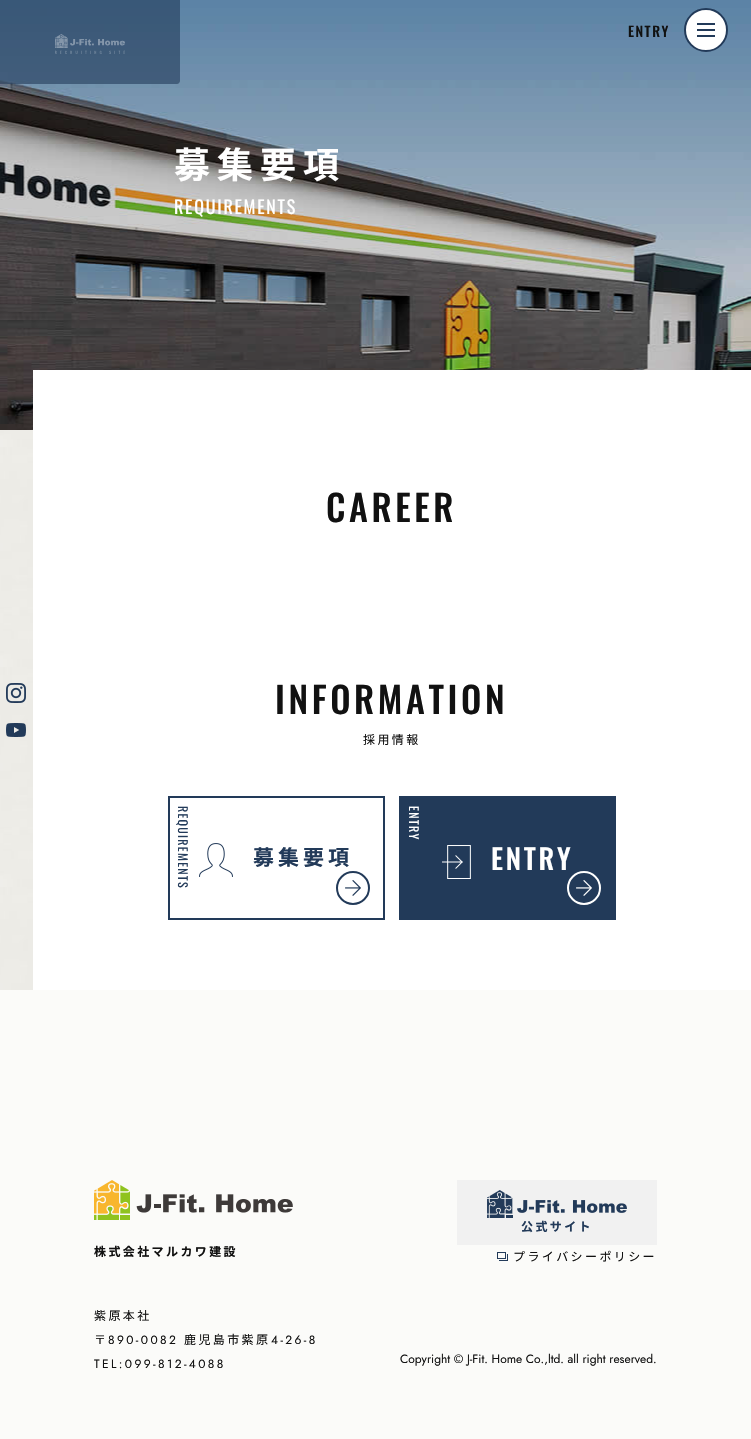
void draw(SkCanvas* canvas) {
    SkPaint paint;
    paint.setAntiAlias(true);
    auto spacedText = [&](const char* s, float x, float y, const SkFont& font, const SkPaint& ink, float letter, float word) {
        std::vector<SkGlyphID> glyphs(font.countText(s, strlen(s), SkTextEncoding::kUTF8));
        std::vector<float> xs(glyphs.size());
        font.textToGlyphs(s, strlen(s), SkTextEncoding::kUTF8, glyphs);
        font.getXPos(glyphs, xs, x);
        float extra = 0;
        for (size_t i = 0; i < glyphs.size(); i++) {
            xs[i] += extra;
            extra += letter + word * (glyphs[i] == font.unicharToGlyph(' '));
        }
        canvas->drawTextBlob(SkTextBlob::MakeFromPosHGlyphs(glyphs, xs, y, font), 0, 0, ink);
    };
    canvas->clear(0xFFFFFFFF);
    canvas->drawImageRect(SkImages::DeferredFromEncodedData(SkData::MakeFromFileName("img1.png")), SkRect::MakeXYWH(0, 430, 33, 560), SkSamplingOptions());
    canvas->drawImageRect(SkImages::DeferredFromEncodedData(SkData::MakeFromFileName("img3.png")), SkRect::MakeXYWH(0, 0, 751, 430), SkSamplingOptions());
    paint.setColor(0x99223A59);
    canvas->drawPath(SkPathBuilder().moveTo(0, 0).lineTo(180, 0).lineTo(180, 81).cubicTo(180, 82.5f, 178.5f, 84, 177, 84).lineTo(0, 84).close().detach(), paint);
    canvas->drawImageRect(SkImages::DeferredFromEncodedData(SkData::MakeFromFileName("img2.png")), SkRect::MakeXYWH(55, 34, 70, 20), SkSamplingOptions());
    SkFont font1(fontMgr->matchFamilyStyle("Oswald", SkFontStyle(500, SkFontStyle::kNormal_Width, SkFontStyle::kUpright_Slant)), 14);
    font1.setSubpixel(true);
    paint.setColor(0xFF111111);
    spacedText("ENTRY", 628, 37, font1, paint, 1.5f, 0);
    paint.setColor(0xFFFFFFFF);
    canvas->drawCircle(706, 30, 21, paint);
    paint.setStyle(SkPaint::kStroke_Style);
    paint.setStrokeWidth(2);
    paint.setColor(0xFF223A59);
    canvas->drawCircle(706, 30, 21, paint);
    paint.setStyle(SkPaint::kFill_Style);
    canvas->drawRect(SkRect::MakeXYWH(697, 23, 18, 2), paint);
    canvas->drawRect(SkRect::MakeXYWH(697, 29, 18, 2), paint);
    canvas->drawRect(SkRect::MakeXYWH(697, 35, 18, 2), paint);
    SkFont font2(fontMgr->matchFamilyStyle("Noto Sans JP", SkFontStyle::Bold()), 36);
    font2.setSubpixel(true);
    paint.setColor(0xFFFFFFFF);
    spacedText("募集要項", 174, 178, font2, paint, 7, 0);
    SkFont font3(fontMgr->matchFamilyStyle("Oswald", SkFontStyle::Normal()), 18);
    font3.setSubpixel(true);
    spacedText("REQUIREMENTS", 174, 214, font3, paint, 1.75f, 0);
    canvas->drawImageRect(SkImages::DeferredFromEncodedData(SkData::MakeFromFileName("img4.png")), SkRect::MakeXYWH(6, 683, 20, 20), SkSamplingOptions());
    canvas->drawImageRect(SkImages::DeferredFromEncodedData(SkData::MakeFromFileName("img5.png")), SkRect::MakeXYWH(6, 723, 20, 14), SkSamplingOptions());
    canvas->drawRect(SkRect::MakeXYWH(33, 370, 718, 60), paint);
    SkFont font4(fontMgr->matchFamilyStyle("Oswald", SkFontStyle(500, SkFontStyle::kNormal_Width, SkFontStyle::kUpright_Slant)), 36);
    font4.setSubpixel(true);
    paint.setColor(0xFF111111);
    spacedText("CAREER", 326, 522, font4, paint, 3.6f, 0);
    spacedText("INFORMATION", 275, 714, font4, paint, 3.6f, 0);
    SkFont font5(fontMgr->matchFamilyStyle("Noto Sans JP", SkFontStyle::Normal()), 12);
    font5.setSubpixel(true);
    spacedText("採用情報", 363, 744, font5, paint, 2.4f, 0);
    paint.setStyle(SkPaint::kStroke_Style);
    paint.setColor(0xFF223A59);
    canvas->drawRect(SkRect::MakeXYWH(169, 797, 215, 122), paint);
    SkFont font6(fontMgr->matchFamilyStyle("Oswald", SkFontStyle::Normal()), 12);
    font6.setSubpixel(true);
    paint.setStyle(SkPaint::kFill_Style);
    canvas->save();
    canvas->rotate(90, 178, 806);
    spacedText("REQUIREMENTS", 178, 806, font6, paint, 1.25f, 0);
    canvas->restore();
    canvas->drawImageRect(SkImages::DeferredFromEncodedData(SkData::MakeFromFileName("img6.png")), SkRect::MakeXYWH(199, 843, 34, 34), SkSamplingOptions());
    SkFont font7(fontMgr->matchFamilyStyle("Noto Sans JP", SkFontStyle::Bold()), 21);
    font7.setSubpixel(true);
    spacedText("募集要項", 253, 865, font7, paint, 4, 0);
    canvas->drawImageRect(SkImages::DeferredFromEncodedData(SkData::MakeFromFileName("img7.png")), SkRect::MakeXYWH(345, 880, 16, 16), SkSamplingOptions());
    paint.setStyle(SkPaint::kStroke_Style);
    canvas->drawCircle(353, 888, 16, paint);
    paint.setStyle(SkPaint::kFill_Style);
    canvas->drawRect(SkRect::MakeXYWH(399, 796, 217, 124), paint);
    paint.setColor(0xFFFFFFFF);
    canvas->save();
    canvas->rotate(90, 409, 806);
    spacedText("ENTRY", 409, 806, font6, paint, 1.25f, 0);
    canvas->restore();
    canvas->drawImageRect(SkImages::DeferredFromEncodedData(SkData::MakeFromFileName("img8.png")), SkRect::MakeXYWH(442, 845, 29, 34), SkSamplingOptions());
    SkFont font8(fontMgr->matchFamilyStyle("Oswald", SkFontStyle(500, SkFontStyle::kNormal_Width, SkFontStyle::kUpright_Slant)), 28);
    font8.setSubpixel(true);
    spacedText("ENTRY", 491, 870, font8, paint, 2.75f, 0);
    canvas->drawImageRect(SkImages::DeferredFromEncodedData(SkData::MakeFromFileName("img9.png")), SkRect::MakeXYWH(576, 880, 16, 16), SkSamplingOptions());
    paint.setStyle(SkPaint::kStroke_Style);
    canvas->drawCircle(584, 888, 16, paint);
    paint.setStyle(SkPaint::kFill_Style);
    paint.setColor(0xFFFBFBF9);
    canvas->drawRect(SkRect::MakeXYWH(0, 990, 751, 449), paint);
    canvas->drawImageRect(SkImages::DeferredFromEncodedData(SkData::MakeFromFileName("img10.png")), SkRect::MakeXYWH(94, 1180, 199, 40), SkSamplingOptions());
    SkFont font9(fontMgr->matchFamilyStyle("Noto Sans JP", SkFontStyle::Bold()), 12);
    font9.setSubpixel(true);
    paint.setColor(0xFF111111);
    spacedText("株式会社マルカワ建設", 94, 1256, font9, paint, 2.4f, 0);
    spacedText("紫原本社", 94, 1320, font5, paint, 2.4f, 0);
    spacedText("〒", 94, 1344, font5, paint, 2.4f, 0);
    SkFont font10(fontMgr->matchFamilyStyle("Jost", SkFontStyle::Normal()), 12);
    font10.setSubpixel(true);
    spacedText("890-0082", 108, 1344, font10, paint, 2.4f, 0);
    spacedText("鹿児島市紫原", 184, 1344, font5, paint, 2.4f, 0);
    spacedText("4-26-8", 271, 1344, font10, paint, 2.4f, 0);
    spacedText("TEL:099-812-4088", 94, 1368, font10, paint, 2.4f, 0);
    paint.setColor(0xFFF1F1F1);
    canvas->drawRect(SkRect::MakeXYWH(457, 1180, 200, 65), paint);
    canvas->drawImageRect(SkImages::DeferredFromEncodedData(SkData::MakeFromFileName("img11.png")), SkRect::MakeXYWH(487, 1190, 140, 28), SkSamplingOptions());
    paint.setColor(0xFF223A59);
    spacedText("公式サイト", 521, 1231, font9, paint, 2.4f, 0);
    canvas->drawImageRect(SkImages::DeferredFromEncodedData(SkData::MakeFromFileName("img12.png")), SkRect::MakeXYWH(497, 1252, 11, 9), SkSamplingOptions());
    paint.setColor(0xFF111111);
    spacedText("プライバシーポリシー", 513, 1261, font5, paint, 2.4f, 0);
    canvas->drawString("Copyright © J-Fit. Home Co.,ltd. all right reserved.", 400, 1363, font10, paint);
}
